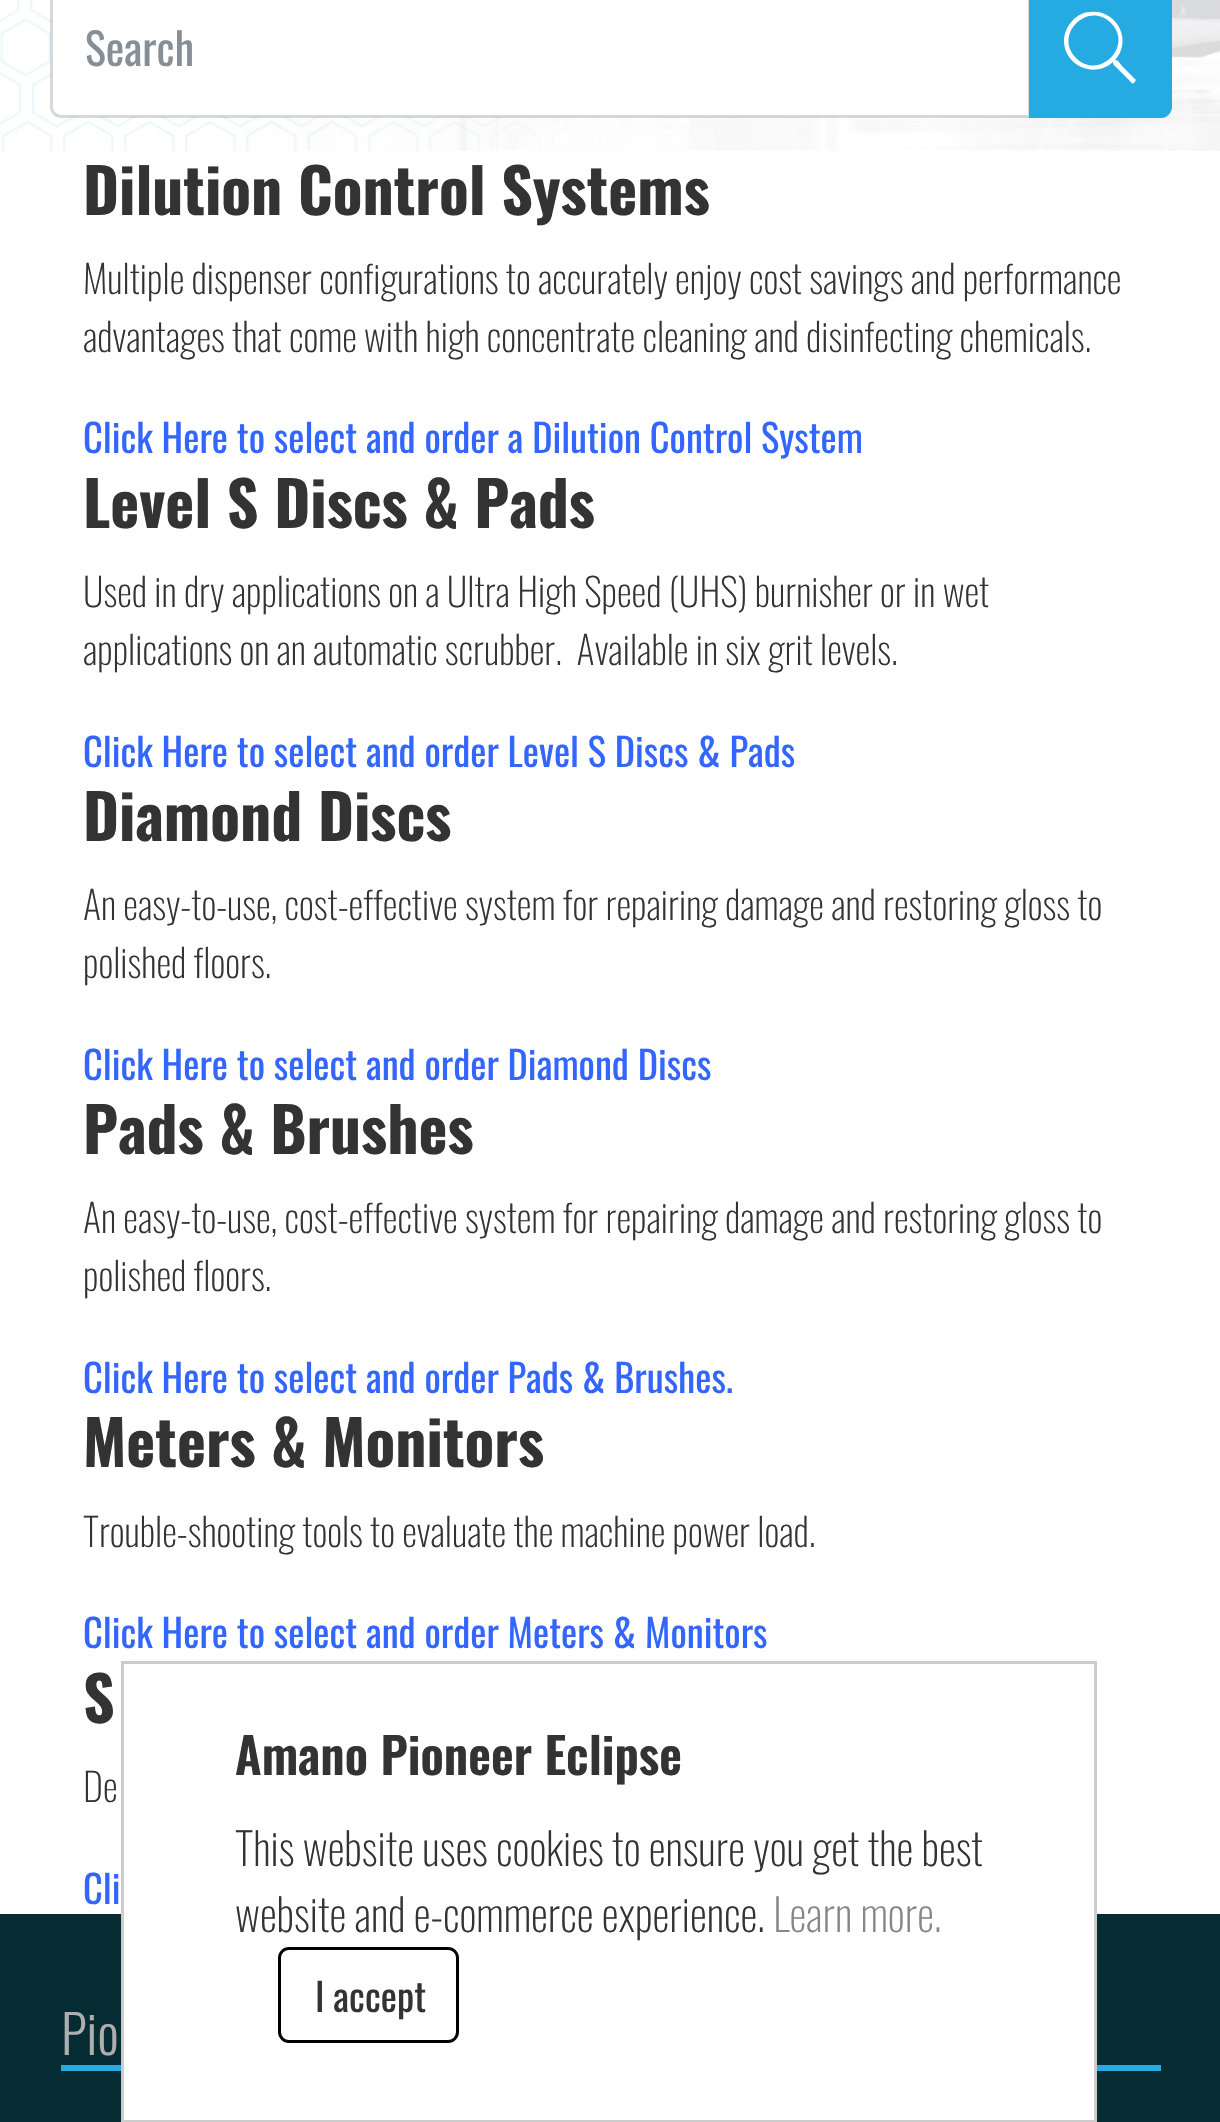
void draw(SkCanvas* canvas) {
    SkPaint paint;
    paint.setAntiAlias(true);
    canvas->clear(0xFFFFFFFF);
    canvas->drawImageRect(SkImages::DeferredFromEncodedData(SkData::MakeFromFileName("img1.png")), SkRect::MakeXYWH(0, 0, 1220, 151), SkSamplingOptions());
    paint.setColor(0xFFFFFFFF);
    canvas->drawPath(SkPathBuilder().moveTo(60, -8).lineTo(1029, -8).lineTo(1029, 116).lineTo(60, 116).cubicTo(55.5f, 116, 52, 112.5f, 52, 108).lineTo(52, 0).cubicTo(52, -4.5f, 55.5f, -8, 60, -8).close().detach(), paint);
    paint.setStyle(SkPaint::kStroke_Style);
    paint.setStrokeWidth(3);
    paint.setColor(0x26000000);
    canvas->drawPath(SkPathBuilder().moveTo(61, -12.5f).lineTo(1029.5f, -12.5f).lineTo(1029.5f, 116.5f).lineTo(61, 116.5f).cubicTo(56, 116.5f, 51.5f, 112, 51.5f, 107).lineTo(51.5f, -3).cubicTo(51.5f, -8, 56, -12.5f, 61, -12.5f).close().detach(), paint);
    SkFont font1(fontMgr->matchFamilyStyle("Oswald", SkFontStyle::Normal()), 44);
    font1.setSubpixel(true);
    paint.setStyle(SkPaint::kFill_Style);
    paint.setColor(0xFF868E96);
    canvas->drawString("Search", 85, 66, font1, paint);
    paint.setColor(0xFF25AAE1);
    canvas->drawPath(SkPathBuilder().moveTo(1030.5f, -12.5f).lineTo(1161, -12.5f).cubicTo(1166, -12.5f, 1170.5f, -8, 1170.5f, -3).lineTo(1170.5f, 107).cubicTo(1170.5f, 112, 1166, 116.5f, 1161, 116.5f).lineTo(1030.5f, 116.5f).close().detach(), paint);
    paint.setStyle(SkPaint::kStroke_Style);
    canvas->drawPath(SkPathBuilder().moveTo(1030.5f, -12.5f).lineTo(1161, -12.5f).cubicTo(1166, -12.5f, 1170.5f, -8, 1170.5f, -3).lineTo(1170.5f, 107).cubicTo(1170.5f, 112, 1166, 116.5f, 1161, 116.5f).lineTo(1030.5f, 116.5f).close().detach(), paint);
    paint.setStyle(SkPaint::kFill_Style);
    paint.setColor(0xFFFFFFFF);
    canvas->drawPath(SkPathBuilder().moveTo(1135, 79).lineTo(1136, 80).lineTo(1134, 83).cubicTo(1132, 85, 1130, 81, 1129, 80).lineTo(1117, 68).cubicTo(1114, 65, 1113, 65, 1113, 62).cubicTo(1093, 80, 1062, 64, 1064, 38).cubicTo(1065, 31, 1068, 25, 1073, 20).cubicTo(1078, 15, 1084, 12, 1090, 12).cubicTo(1117, 9, 1133, 41, 1115, 60).cubicTo(1119, 60, 1120, 64, 1123, 67).close().moveTo(1076, 58).cubicTo(1099, 81, 1134, 46, 1111, 23).cubicTo(1088, 0, 1053, 35, 1076, 58).close().detach(), paint);
    SkFont font2(fontMgr->matchFamilyStyle("Oswald", SkFontStyle::Bold()), 61.6f);
    font2.setSubpixel(true);
    paint.setColor(0xFF333333);
    canvas->drawString("Dilution Control Systems", 83, 215, font2, paint);
    SkFont font3(fontMgr->matchFamilyStyle("Oswald", SkFontStyle(200, SkFontStyle::kNormal_Width, SkFontStyle::kUpright_Slant)), 38.5f);
    font3.setSubpixel(true);
    canvas->drawString("Multiple dispenser configurations to accurately enjoy cost savings and performance", 83, 294, font3, paint);
    canvas->drawString("advantages that come with high concentrate cleaning and disinfecting chemicals.", 83, 352, font3, paint);
    SkFont font4(fontMgr->matchFamilyStyle("Oswald", SkFontStyle::Normal()), 38.5f);
    font4.setSubpixel(true);
    paint.setColor(0xFF3366FF);
    canvas->drawString("Click Here to select and order a Dilution Control System", 83, 453, font4, paint);
    paint.setColor(0xFF333333);
    canvas->drawString("Level S Discs & Pads", 83, 528, font2, paint);
    canvas->drawString("Used in dry applications on a Ultra High Speed (UHS) burnisher or in wet", 83, 607, font3, paint);
    canvas->drawString("applications on an automatic scrubber.  Available in six grit levels.", 83, 665, font3, paint);
    paint.setColor(0xFF3366FF);
    canvas->drawString("Click Here to select and order Level S Discs & Pads", 83, 767, font4, paint);
    paint.setColor(0xFF333333);
    canvas->drawString("Diamond Discs", 83, 841, font2, paint);
    canvas->drawString("An easy-to-use, cost-effective system for repairing damage and restoring gloss to", 83, 920, font3, paint);
    canvas->drawString("polished floors.", 83, 978, font3, paint);
    paint.setColor(0xFF3366FF);
    canvas->drawString("Click Here to select and order Diamond Discs", 83, 1080, font4, paint);
    paint.setColor(0xFF333333);
    canvas->drawString("Pads & Brushes", 83, 1154, font2, paint);
    canvas->drawString("An easy-to-use, cost-effective system for repairing damage and restoring gloss to", 83, 1233, font3, paint);
    canvas->drawString("polished floors.", 83, 1291, font3, paint);
    paint.setColor(0xFF3366FF);
    canvas->drawString("Click Here to select and order Pads & Brushes.", 83, 1393, font4, paint);
    paint.setColor(0xFF333333);
    canvas->drawString("Meters & Monitors", 83, 1467, font2, paint);
    canvas->drawString("Trouble-shooting tools to evaluate the machine power load.", 83, 1547, font3, paint);
    paint.setColor(0xFF3366FF);
    canvas->drawString("Click Here to select and order Meters & Monitors", 83, 1648, font4, paint);
    paint.setColor(0xFF333333);
    canvas->drawString("S", 83, 1723, font2, paint);
    canvas->drawString("De", 83, 1802, font3, paint);
    paint.setColor(0xFF3366FF);
    canvas->drawString("Cli", 83, 1904, font4, paint);
    paint.setColor(0xFF062C33);
    canvas->drawRect(SkRect::MakeXYWH(0, 1914, 1220, 208), paint);
    paint.setColor(0xFF25AAE1);
    canvas->drawRect(SkRect::MakeXYWH(61, 2065, 1100, 6), paint);
    SkFont font5(fontMgr->matchFamilyStyle("Oswald", SkFontStyle(300, SkFontStyle::kNormal_Width, SkFontStyle::kUpright_Slant)), 53);
    font5.setSubpixel(true);
    paint.setColor(0xFFAEAEAE);
    canvas->drawString("Pio", 61, 2055, font5, paint);
    paint.setColor(0xFFFFFFFF);
    canvas->drawRect(SkRect::MakeXYWH(124, 1914, 970, 206), paint);
    paint.setStyle(SkPaint::kStroke_Style);
    paint.setColor(0xFFCCCCCC);
    canvas->drawRect(SkRect::MakeXYWH(122.5f, 1662.5f, 973, 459), paint);
    SkFont font6(fontMgr->matchFamilyStyle("Oswald", SkFontStyle(600, SkFontStyle::kNormal_Width, SkFontStyle::kUpright_Slant)), 49.5f);
    font6.setSubpixel(true);
    paint.setStyle(SkPaint::kFill_Style);
    paint.setColor(0xFF333333);
    canvas->drawString("Amano Pioneer Eclipse", 235, 1775, font6, paint);
    SkFont font7(fontMgr->matchFamilyStyle("Oswald", SkFontStyle(200, SkFontStyle::kNormal_Width, SkFontStyle::kUpright_Slant)), 44);
    font7.setSubpixel(true);
    canvas->drawString("This website uses cookies to ensure you get the best", 235, 1866, font7, paint);
    canvas->drawString("website and e-commerce experience.", 235, 1932, font7, paint);
    paint.setColor(0xFF868686);
    canvas->drawString("Learn more.", 773, 1932, font7, paint);
    paint.setStyle(SkPaint::kStroke_Style);
    paint.setColor(0xFF000000);
    canvas->drawRoundRect(SkRect::MakeXYWH(279.5f, 1948.5f, 178, 93), 9.5f, 9.5f, paint);
    paint.setStyle(SkPaint::kFill_Style);
    paint.setColor(0xFF333333);
    canvas->drawString("I accept", 315, 2012, font4, paint);
}
